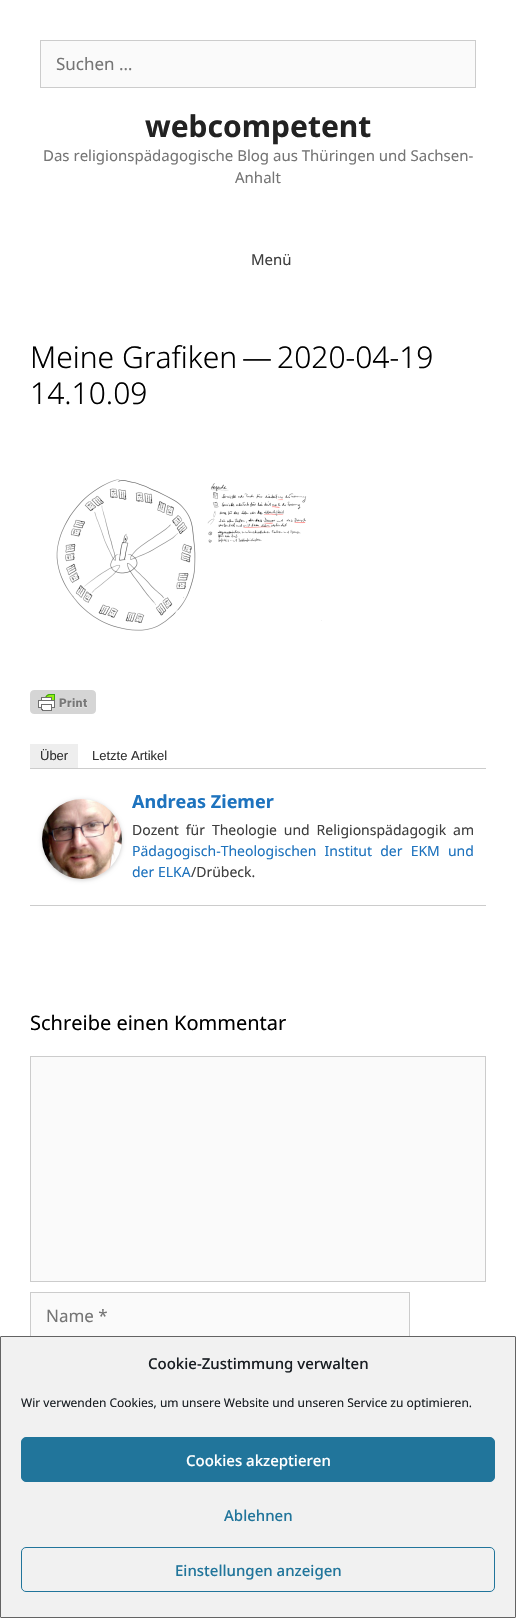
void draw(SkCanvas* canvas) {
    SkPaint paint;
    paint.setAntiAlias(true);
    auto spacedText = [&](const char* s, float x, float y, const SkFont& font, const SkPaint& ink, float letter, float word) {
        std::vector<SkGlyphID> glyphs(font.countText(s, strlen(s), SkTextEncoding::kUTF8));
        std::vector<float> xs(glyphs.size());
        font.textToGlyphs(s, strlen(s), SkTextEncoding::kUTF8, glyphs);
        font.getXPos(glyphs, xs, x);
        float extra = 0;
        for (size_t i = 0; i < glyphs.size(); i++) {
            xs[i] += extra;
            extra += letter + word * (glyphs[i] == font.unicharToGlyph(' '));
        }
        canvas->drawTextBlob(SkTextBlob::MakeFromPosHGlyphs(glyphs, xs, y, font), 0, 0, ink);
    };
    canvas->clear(0xFFFFFFFF);
    paint.setColor(0xFFFAFAFA);
    canvas->drawRect(SkRect::MakeXYWH(40.5f, 40.5f, 435, 47), paint);
    paint.setStyle(SkPaint::kStroke_Style);
    paint.setStrokeWidth(1);
    paint.setColor(0xFFCCCCCC);
    canvas->drawRect(SkRect::MakeXYWH(40.5f, 40.5f, 435, 47), paint);
    SkFont font1(fontMgr->matchFamilyStyle("Noto Sans", SkFontStyle::Normal()), 17);
    font1.setSubpixel(true);
    paint.setStyle(SkPaint::kFill_Style);
    paint.setColor(0xFF757575);
    canvas->drawString("Suchen …", 56, 70, font1, paint);
    SkFont font2(fontMgr->matchFamilyStyle("Noto Sans", SkFontStyle::Bold()), 30);
    font2.setSubpixel(true);
    paint.setColor(0xFF222222);
    canvas->drawString("webcompetent", 145, 137, font2, paint);
    SkFont font3(fontMgr->matchFamilyStyle("Noto Sans", SkFontStyle::Normal()), 15);
    font3.setSubpixel(true);
    paint.setColor(0xFF757575);
    canvas->drawString("Das religionspädagogische Blog aus Thüringen und Sachsen-", 43, 161, font3, paint);
    canvas->drawString("Anhalt", 235, 183, font3, paint);
    paint.setColor(0xFF3F3F3F);
    canvas->drawString("Menü", 251, 265, font3, paint);
    SkFont font4(fontMgr->matchFamilyStyle("Noto Sans", SkFontStyle(300, SkFontStyle::kNormal_Width, SkFontStyle::kUpright_Slant)), 30);
    font4.setSubpixel(true);
    paint.setColor(0xFF000000);
    canvas->drawString("Meine Grafiken — 2020-04-19", 30, 368, font4, paint);
    canvas->drawString("14.10.09", 30, 404, font4, paint);
    canvas->drawImageRect(SkImages::DeferredFromEncodedData(SkData::MakeFromFileName("img1.png")), SkRect::MakeXYWH(56, 479, 266, 152), SkSamplingOptions());
    canvas->drawImageRect(SkImages::DeferredFromEncodedData(SkData::MakeFromFileName("img2.png")), SkRect::MakeXYWH(30, 690, 66, 24), SkSamplingOptions());
    paint.setColor(0xFFCCCCCC);
    canvas->drawRect(SkRect::MakeXYWH(30, 768, 456, 1), paint);
    paint.setColor(0xFFEEEEEE);
    canvas->drawRect(SkRect::MakeXYWH(30, 744, 48, 24), paint);
    SkFont font5(fontMgr->matchFamilyStyle("Liberation Sans", SkFontStyle::Normal()), 13);
    font5.setSubpixel(true);
    paint.setColor(0xFF333333);
    canvas->drawString("Über", 40, 760, font5, paint);
    canvas->drawString("Letzte Artikel", 92, 760, font5, paint);
    paint.setColor(0xFFCCCCCC);
    canvas->drawRect(SkRect::MakeXYWH(30, 905, 456, 1), paint);
    paint.setColor(0x33000000);
    paint.setMaskFilter(SkMaskFilter::MakeBlur(kNormal_SkBlurStyle, 2));
    canvas->drawRoundRect(SkRect::MakeXYWH(42, 800, 80, 80), 40, 40, paint);
    paint.setMaskFilter(nullptr);
    canvas->drawImageRect(SkImages::DeferredFromEncodedData(SkData::MakeFromFileName("img3.png")), SkRect::MakeXYWH(42, 799, 80, 80), SkSamplingOptions());
    SkFont font6(fontMgr->matchFamilyStyle("Noto Sans", SkFontStyle::Bold()), 18);
    font6.setSubpixel(true);
    paint.setColor(0xFF1E73BE);
    canvas->drawString("Andreas Ziemer", 132, 808, font6, paint);
    SkFont font7(fontMgr->matchFamilyStyle("Noto Sans", SkFontStyle::Normal()), 14);
    font7.setSubpixel(true);
    paint.setColor(0xFF3F3F3F);
    spacedText("Dozent für Theologie und Religionspädagogik am", 132, 835, font7, paint, 0, 3.25f);
    paint.setColor(0xFF1E73BE);
    spacedText("Pädagogisch-Theologischen Institut der EKM und", 132, 856, font7, paint, 0, 4.5f);
    canvas->drawString("der ELKA", 132, 877, font7, paint);
    paint.setColor(0xFF3F3F3F);
    canvas->drawString("/Drübeck.", 191, 877, font7, paint);
    SkFont font8(fontMgr->matchFamilyStyle("Noto Sans", SkFontStyle::Normal()), 20);
    font8.setSubpixel(true);
    paint.setColor(0xFF000000);
    canvas->drawString("Schreibe einen Kommentar", 30, 1030, font8, paint);
    paint.setColor(0xFFFAFAFA);
    canvas->drawRect(SkRect::MakeXYWH(30.5f, 1056.5f, 455, 225), paint);
    paint.setStyle(SkPaint::kStroke_Style);
    paint.setColor(0xFFCCCCCC);
    canvas->drawRect(SkRect::MakeXYWH(30.5f, 1056.5f, 455, 225), paint);
    paint.setStyle(SkPaint::kFill_Style);
    paint.setColor(0xFFFAFAFA);
    canvas->drawRect(SkRect::MakeXYWH(31, 1293, 378, 43), paint);
    paint.setStyle(SkPaint::kStroke_Style);
    paint.setColor(0xFFCCCCCC);
    canvas->drawRect(SkRect::MakeXYWH(30.5f, 1292.5f, 379, 47), paint);
    paint.setStyle(SkPaint::kFill_Style);
    paint.setColor(0xFF757575);
    canvas->drawString("Name *", 46, 1322, font1, paint);
    paint.setColor(0xFFF1F1F1);
    canvas->drawRoundRect(SkRect::MakeXYWH(0.5f, 1336.5f, 515, 281), 0.5f, 0.5f, paint);
    paint.setStyle(SkPaint::kStroke_Style);
    paint.setColor(0xFF636363);
    canvas->drawRoundRect(SkRect::MakeXYWH(0.5f, 1336.5f, 515, 281), 0.5f, 0.5f, paint);
    SkFont font9(fontMgr->matchFamilyStyle("Noto Sans", SkFontStyle(500, SkFontStyle::kNormal_Width, SkFontStyle::kUpright_Slant)), 15);
    font9.setSubpixel(true);
    paint.setStyle(SkPaint::kFill_Style);
    paint.setColor(0xFF191E23);
    canvas->drawString("Cookie-Zustimmung verwalten", 148, 1369, font9, paint);
    SkFont font10(fontMgr->matchFamilyStyle("Noto Sans", SkFontStyle::Normal()), 12);
    font10.setSubpixel(true);
    canvas->drawString("Wir verwenden Cookies, um unsere Website und unseren Service zu optimieren.", 21, 1407, font10, paint);
    paint.setColor(0xFF21759B);
    canvas->drawRoundRect(SkRect::MakeXYWH(21.5f, 1437.5f, 473, 44), 4.5f, 4.5f, paint);
    paint.setStyle(SkPaint::kStroke_Style);
    canvas->drawRoundRect(SkRect::MakeXYWH(21.5f, 1437.5f, 473, 44), 4.5f, 4.5f, paint);
    paint.setStyle(SkPaint::kFill_Style);
    paint.setColor(0xFFFFFFFF);
    canvas->drawString("Cookies akzeptieren", 186, 1466, font9, paint);
    paint.setColor(0xFF21759B);
    canvas->drawString("Ablehnen", 224, 1521, font9, paint);
    paint.setStyle(SkPaint::kStroke_Style);
    canvas->drawRoundRect(SkRect::MakeXYWH(21.5f, 1547.5f, 473, 44), 4.5f, 4.5f, paint);
    paint.setStyle(SkPaint::kFill_Style);
    canvas->drawString("Einstellungen anzeigen", 175, 1576, font9, paint);
}
